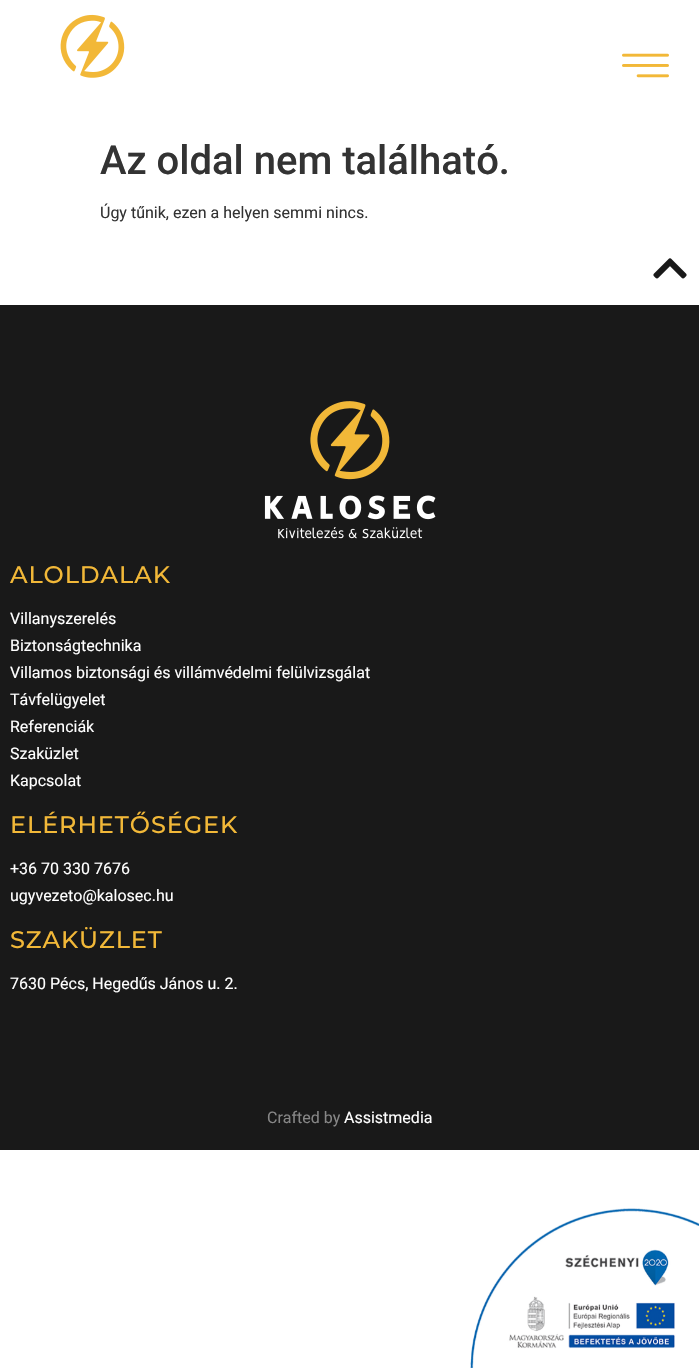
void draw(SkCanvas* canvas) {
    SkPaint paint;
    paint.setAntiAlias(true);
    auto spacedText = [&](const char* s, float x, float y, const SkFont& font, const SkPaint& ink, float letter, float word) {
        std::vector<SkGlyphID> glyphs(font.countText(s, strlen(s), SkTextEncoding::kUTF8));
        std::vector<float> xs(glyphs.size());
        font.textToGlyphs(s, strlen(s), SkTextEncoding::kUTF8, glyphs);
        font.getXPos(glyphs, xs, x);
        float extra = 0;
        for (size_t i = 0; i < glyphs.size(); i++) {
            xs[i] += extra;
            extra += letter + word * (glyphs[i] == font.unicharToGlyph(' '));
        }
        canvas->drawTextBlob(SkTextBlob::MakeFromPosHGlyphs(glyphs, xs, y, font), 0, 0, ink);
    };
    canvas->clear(0xFFFFFFFF);
    canvas->drawImageRect(SkImages::DeferredFromEncodedData(SkData::MakeFromFileName("img1.png")), SkRect::MakeXYWH(60, 14, 65, 64), SkSamplingOptions());
    canvas->drawImageRect(SkImages::DeferredFromEncodedData(SkData::MakeFromFileName("img2.png")), SkRect::MakeXYWH(622, 53, 47, 25), SkSamplingOptions());
    SkFont font1(fontMgr->matchFamilyStyle("Roboto", SkFontStyle(500, SkFontStyle::kNormal_Width, SkFontStyle::kUpright_Slant)), 40);
    font1.setSubpixel(true);
    paint.setColor(0xFF333333);
    canvas->drawString("Az oldal nem található.", 100, 174, font1, paint);
    SkFont font2(fontMgr->matchFamilyStyle("Roboto", SkFontStyle::Normal()), 16);
    font2.setSubpixel(true);
    canvas->drawString("Úgy tűnik, ezen a helyen semmi nincs.", 100, 218, font2, paint);
    canvas->drawImageRect(SkImages::DeferredFromEncodedData(SkData::MakeFromFileName("img3.png")), SkRect::MakeXYWH(653, 258, 34, 21), SkSamplingOptions());
    paint.setColor(0xFF191919);
    canvas->drawRect(SkRect::MakeXYWH(0, 305, 699, 845), paint);
    canvas->drawImageRect(SkImages::DeferredFromEncodedData(SkData::MakeFromFileName("img4.png")), SkRect::MakeXYWH(264, 401, 172, 138), SkSamplingOptions());
    SkFont font3(fontMgr->matchFamilyStyle("Montserrat", SkFontStyle(500, SkFontStyle::kNormal_Width, SkFontStyle::kUpright_Slant)), 24);
    font3.setSubpixel(true);
    paint.setColor(0xFFF2B838);
    spacedText("ALOLDALAK", 10, 583, font3, paint, 0.9f, 0);
    paint.setColor(0xFFFFFFFF);
    canvas->drawString("Villanyszerelés", 10, 624, font2, paint);
    canvas->drawString("Biztonságtechnika", 10, 651, font2, paint);
    canvas->drawString("Villamos biztonsági és villámvédelmi felülvizsgálat", 10, 678, font2, paint);
    canvas->drawString("Távfelügyelet", 10, 705, font2, paint);
    canvas->drawString("Referenciák", 10, 732, font2, paint);
    canvas->drawString("Szaküzlet", 10, 759, font2, paint);
    canvas->drawString("Kapcsolat", 10, 786, font2, paint);
    paint.setColor(0xFFF2B838);
    spacedText("ELÉRHETŐSÉGEK", 10, 833, font3, paint, 0.9f, 0);
    paint.setColor(0xFFFFFFFF);
    canvas->drawString("+36 70 330 7676", 10, 874, font2, paint);
    canvas->drawString("ugyvezeto@kalosec.hu", 10, 901, font2, paint);
    paint.setColor(0xFFF2B838);
    spacedText("SZAKÜZLET", 10, 948, font3, paint, 0.9f, 0);
    paint.setColor(0xFFFFFFFF);
    canvas->drawString("7630 Pécs, Hegedűs János u. 2.", 10, 989, font2, paint);
    paint.setColor(0xFF868686);
    canvas->drawString("Crafted by", 267, 1123, font2, paint);
    paint.setColor(0xFFFFFFFF);
    canvas->drawString("Assistmedia", 344, 1123, font2, paint);
    canvas->drawImageRect(SkImages::DeferredFromEncodedData(SkData::MakeFromFileName("img5.png")), SkRect::MakeXYWH(470, 1208, 229, 160), SkSamplingOptions());
}
